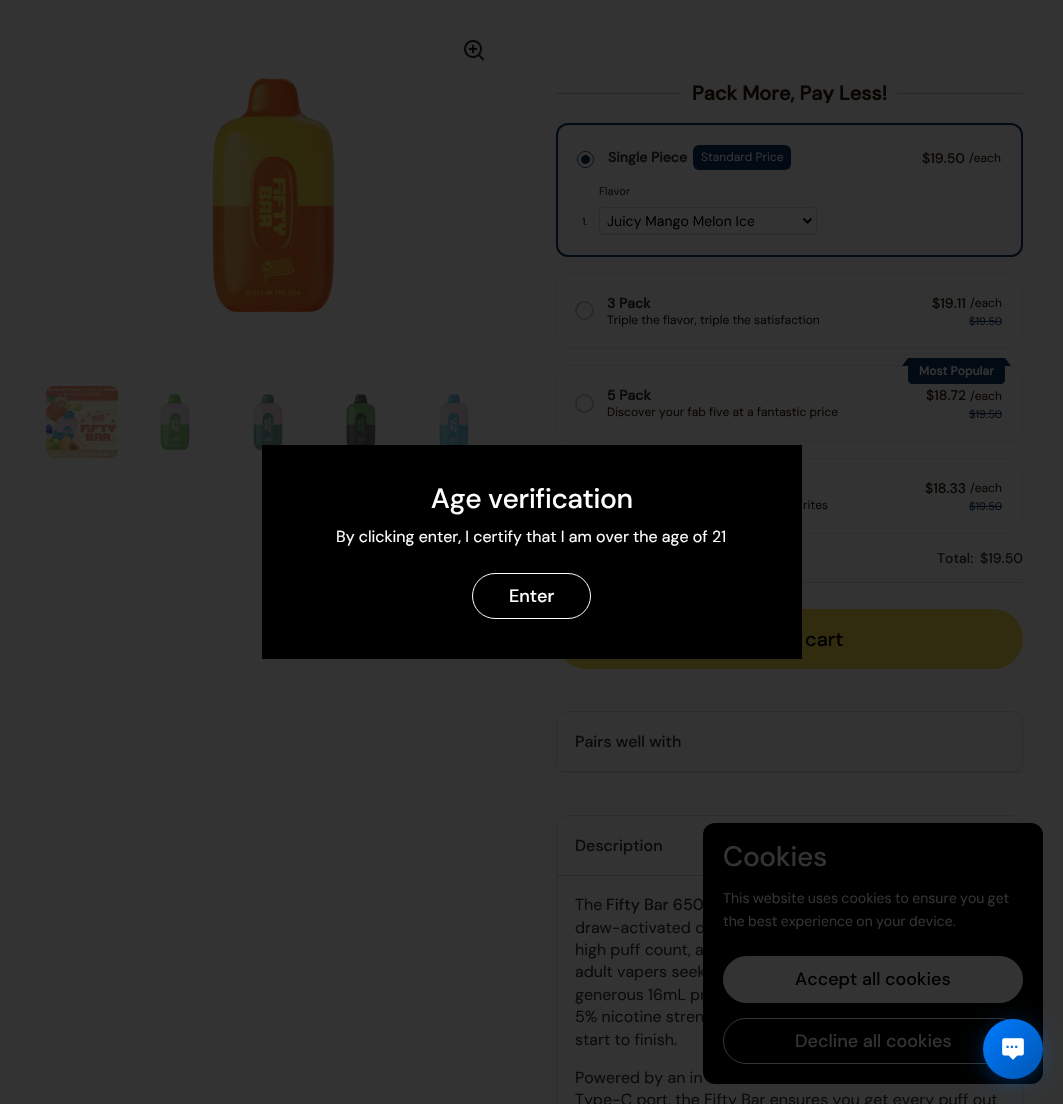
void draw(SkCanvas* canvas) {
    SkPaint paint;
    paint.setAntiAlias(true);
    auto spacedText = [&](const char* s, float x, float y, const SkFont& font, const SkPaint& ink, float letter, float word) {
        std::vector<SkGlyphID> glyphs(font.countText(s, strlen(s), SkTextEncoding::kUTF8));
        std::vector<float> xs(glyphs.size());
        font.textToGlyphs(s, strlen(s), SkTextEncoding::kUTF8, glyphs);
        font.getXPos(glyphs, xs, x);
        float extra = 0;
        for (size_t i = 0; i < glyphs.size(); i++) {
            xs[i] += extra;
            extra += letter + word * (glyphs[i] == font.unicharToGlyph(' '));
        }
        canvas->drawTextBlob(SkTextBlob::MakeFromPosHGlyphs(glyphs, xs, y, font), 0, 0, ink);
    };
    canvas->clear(0xFF333333);
    canvas->drawImageRect(SkImages::DeferredFromEncodedData(SkData::MakeFromFileName("img5.png")), SkRect::MakeXYWH(253, 394, 30, 56), SkSamplingOptions());
    paint.setStyle(SkPaint::kStroke_Style);
    paint.setStrokeWidth(1);
    paint.setColor(0x1A060606);
    canvas->drawRoundRect(SkRect::MakeXYWH(556.5f, 458.5f, 466, 75), 11.5f, 11.5f, paint);
    paint.setStyle(SkPaint::kFill_Style);
    paint.setColor(0xFF312B0F);
    canvas->drawRoundRect(SkRect::MakeXYWH(556, 609, 467, 60), 30, 30, paint);
    paint.setColor(0xFF000000);
    canvas->drawRect(SkRect::MakeXYWH(262, 445, 540, 214), paint);
    SkFont font1(fontMgr->matchFamilyStyle("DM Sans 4", SkFontStyle(500, SkFontStyle::kNormal_Width, SkFontStyle::kUpright_Slant)), 28);
    font1.setSubpixel(true);
    paint.setColor(0xFFFFFFFF);
    canvas->drawString("Age verification", 431, 508, font1, paint);
    SkFont font2(fontMgr->matchFamilyStyle("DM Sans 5", SkFontStyle::Normal()), 16);
    font2.setSubpixel(true);
    canvas->drawString("By clicking enter, I certify that I am over the age of 21", 336, 542, font2, paint);
    paint.setStyle(SkPaint::kStroke_Style);
    canvas->drawRoundRect(SkRect::MakeXYWH(472.5f, 573.5f, 118, 45), 22.5f, 22.5f, paint);
    SkFont font3(fontMgr->matchFamilyStyle("DM Sans 5", SkFontStyle(500, SkFontStyle::kNormal_Width, SkFontStyle::kUpright_Slant)), 18);
    font3.setSubpixel(true);
    paint.setStyle(SkPaint::kFill_Style);
    canvas->drawString("Enter", 509, 602, font3, paint);
    canvas->drawImageRect(SkImages::DeferredFromEncodedData(SkData::MakeFromFileName("img1.png")), SkRect::MakeXYWH(464, 40, 21, 21), SkSamplingOptions());
    canvas->drawImageRect(SkImages::DeferredFromEncodedData(SkData::MakeFromFileName("img2.png")), SkRect::MakeXYWH(212, 78, 123, 235), SkSamplingOptions());
    canvas->drawImageRect(SkImages::DeferredFromEncodedData(SkData::MakeFromFileName("img3.png")), SkRect::MakeXYWH(46, 386, 72, 72), SkSamplingOptions());
    canvas->drawImageRect(SkImages::DeferredFromEncodedData(SkData::MakeFromFileName("img4.png")), SkRect::MakeXYWH(160, 394, 30, 56), SkSamplingOptions());
    canvas->drawImageRect(SkImages::DeferredFromEncodedData(SkData::MakeFromFileName("img6.png")), SkRect::MakeXYWH(346, 394, 30, 51), SkSamplingOptions());
    canvas->drawImageRect(SkImages::DeferredFromEncodedData(SkData::MakeFromFileName("img7.png")), SkRect::MakeXYWH(439, 394, 30, 51), SkSamplingOptions());
    paint.setColor(0xFF282828);
    canvas->drawRect(SkRect::MakeXYWH(556, 93, 126, 1), paint);
    canvas->save();
    canvas->clipRect(SkRect::MakeXYWH(556, 83, 467, 20));
    SkFont font4(fontMgr->matchFamilyStyle("DM Sans", SkFontStyle::Bold()), 20);
    font4.setSubpixel(true);
    paint.setColor(0xFF090500);
    canvas->drawString("Pack More, Pay Less!", 692, 100, font4, paint);
    canvas->restore();
    paint.setColor(0xFF282828);
    canvas->drawRect(SkRect::MakeXYWH(897, 93, 126, 1), paint);
    paint.setStyle(SkPaint::kStroke_Style);
    paint.setStrokeWidth(2);
    paint.setColor(0xFF020A14);
    canvas->drawRoundRect(SkRect::MakeXYWH(557, 124, 465, 132), 11, 11, paint);
    paint.setStrokeWidth(1);
    canvas->drawCircle(585.5f, 159.5f, 8, paint);
    paint.setStyle(SkPaint::kFill_Style);
    canvas->drawCircle(585.5f, 159.5f, 6, paint);
    paint.setStyle(SkPaint::kStroke_Style);
    paint.setStrokeWidth(3);
    paint.setColor(0xFF333333);
    canvas->drawCircle(585.5f, 159.5f, 6, paint);
    SkFont font5(fontMgr->matchFamilyStyle("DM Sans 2", SkFontStyle::Bold()), 14);
    font5.setSubpixel(true);
    paint.setStyle(SkPaint::kFill_Style);
    paint.setColor(0xFF0A0A0A);
    canvas->drawString("Single Piece", 608, 162, font5, paint);
    paint.setColor(0xFF020A14);
    canvas->drawRoundRect(SkRect::MakeXYWH(693, 145, 98, 25), 6, 6, paint);
    SkFont font6(fontMgr->matchFamilyStyle("DM Sans", SkFontStyle::Normal()), 12);
    font6.setSubpixel(true);
    paint.setColor(0xFF333333);
    canvas->drawString("Standard Price", 701, 161, font6, paint);
    SkFont font7(fontMgr->matchFamilyStyle("DM Sans", SkFontStyle(500, SkFontStyle::kNormal_Width, SkFontStyle::kUpright_Slant)), 14);
    font7.setSubpixel(true);
    paint.setColor(0xFF090500);
    canvas->drawString("$19.50", 922, 163, font7, paint);
    canvas->drawString("/each", 969, 162, font6, paint);
    SkFont font8(fontMgr->matchFamilyStyle("DM Sans 2", SkFontStyle::Normal()), 10);
    font8.setSubpixel(true);
    paint.setColor(0xFF000000);
    canvas->drawString("1.", 582, 225, font8, paint);
    SkFont font9(fontMgr->matchFamilyStyle("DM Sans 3", SkFontStyle::Normal()), 11);
    font9.setSubpixel(true);
    paint.setColor(0xFF0A0A0A);
    canvas->drawString("Flavor", 599, 195, font9, paint);
    paint.setStyle(SkPaint::kStroke_Style);
    paint.setStrokeWidth(1);
    paint.setColor(0xFF2B2B2B);
    canvas->drawRoundRect(SkRect::MakeXYWH(599.5f, 207.5f, 217, 27), 3.5f, 3.5f, paint);
    paint.setStrokeWidth(2);
    paint.setColor(0xFF000000);
    canvas->drawPath(SkPathBuilder().moveTo(803.5f, 218.5f).lineTo(807.5f, 222.5f).lineTo(811.5f, 218.5f).detach(), paint);
    SkFont font10(fontMgr->matchFamilyStyle("DM Sans 4", SkFontStyle::Normal()), 14);
    font10.setSubpixel(true);
    paint.setStyle(SkPaint::kFill_Style);
    canvas->drawString("Juicy Mango Melon Ice", 607, 226, font10, paint);
    paint.setStyle(SkPaint::kStroke_Style);
    paint.setStrokeWidth(1);
    paint.setColor(0x1A060606);
    canvas->drawRoundRect(SkRect::MakeXYWH(556.5f, 273.5f, 466, 75), 11.5f, 11.5f, paint);
    paint.setStrokeWidth(2);
    paint.setColor(0xFF272727);
    canvas->drawCircle(584.5f, 310.5f, 8.5f, paint);
    paint.setStyle(SkPaint::kFill_Style);
    paint.setColor(0xFF333333);
    canvas->drawCircle(584.5f, 310.5f, 7.5f, paint);
    paint.setColor(0xFF0A0A0A);
    canvas->drawString("3 Pack", 607, 308, font5, paint);
    paint.setColor(0xFF090500);
    canvas->drawString("Triple the flavor, triple the satisfaction", 607, 324, font6, paint);
    canvas->drawString("$19.11", 932, 308, font7, paint);
    canvas->drawString("/each", 970, 307, font6, paint);
    paint.setColor(0xFF020A14);
    canvas->drawString("$19.50", 969, 325, font9, paint);
    canvas->drawRect(SkRect::MakeXYWH(969, 321, 33, 1), paint);
    paint.setStyle(SkPaint::kStroke_Style);
    paint.setStrokeWidth(1);
    paint.setColor(0x1A060606);
    canvas->drawRoundRect(SkRect::MakeXYWH(556.5f, 365.5f, 466, 76), 11.5f, 11.5f, paint);
    paint.setStrokeWidth(2);
    paint.setColor(0xFF272727);
    canvas->drawCircle(584.5f, 403.5f, 8.5f, paint);
    paint.setStyle(SkPaint::kFill_Style);
    paint.setColor(0xFF333333);
    canvas->drawCircle(584.5f, 403.5f, 7.5f, paint);
    paint.setColor(0xFF0A0A0A);
    canvas->drawString("5 Pack", 607, 400, font5, paint);
    paint.setColor(0xFF090500);
    canvas->drawString("Discover your fab five at a fantastic price", 607, 416, font6, paint);
    paint.setColor(0xFF020A14);
    canvas->drawPath(SkPathBuilder().moveTo(908, 358).lineTo(1005, 358).lineTo(1005, 380).cubicTo(1005, 382, 1003, 384, 1001, 384).lineTo(912, 384).cubicTo(910, 384, 908, 382, 908, 380).close().detach(), paint);
    paint.setColor(0xFF020810);
    canvas->drawPath(SkPathBuilder().moveTo(908, 366).lineTo(902, 366).lineTo(908, 358).close().detach(), paint);
    canvas->drawPath(SkPathBuilder().moveTo(1011, 366).lineTo(1005, 366).lineTo(1005, 358).close().detach(), paint);
    SkFont font11(fontMgr->matchFamilyStyle("DM Sans 3", SkFontStyle::Bold()), 12);
    font11.setSubpixel(true);
    paint.setColor(0xFF333333);
    canvas->drawString("Most Popular", 919, 375, font11, paint);
    paint.setColor(0xFF090500);
    canvas->drawString("$18.72", 926, 400, font7, paint);
    canvas->drawString("/each", 970, 400, font6, paint);
    paint.setColor(0xFF020A14);
    canvas->drawString("$19.50", 969, 418, font9, paint);
    canvas->drawRect(SkRect::MakeXYWH(969, 413, 33, 1), paint);
    paint.setColor(0xFF090500);
    canvas->drawString("rites", 803, 509, font6, paint);
    canvas->drawString("$18.33", 925, 493, font7, paint);
    canvas->drawString("/each", 970, 492, font6, paint);
    paint.setColor(0xFF020A14);
    canvas->drawString("$19.50", 969, 510, font9, paint);
    canvas->drawRect(SkRect::MakeXYWH(969, 506, 33, 1), paint);
    paint.setColor(0xFF0A0A0A);
    canvas->drawString("Total:", 937, 563, font7, paint);
    canvas->drawString("$19.50", 980, 563, font7, paint);
    paint.setColor(0xFF2C2C2C);
    canvas->drawRect(SkRect::MakeXYWH(802, 582, 221, 1), paint);
    SkFont font12(fontMgr->matchFamilyStyle("DM Sans 2", SkFontStyle(500, SkFontStyle::kNormal_Width, SkFontStyle::kUpright_Slant)), 20);
    font12.setSubpixel(true);
    paint.setColor(0xFF000000);
    canvas->drawString("cart", 805, 646, font12, paint);
    paint.setStyle(SkPaint::kStroke_Style);
    paint.setStrokeWidth(1);
    paint.setColor(0xFF2C2C2C);
    canvas->drawRoundRect(SkRect::MakeXYWH(556.5f, 711.5f, 466, 61), 11.5f, 11.5f, paint);
    paint.setStyle(SkPaint::kFill_Style);
    paint.setColor(0x26060606);
    canvas->drawRect(SkRect::MakeXYWH(557, 771, 465, 1), paint);
    SkFont font13(fontMgr->matchFamilyStyle("DM Sans 3", SkFontStyle(500, SkFontStyle::kNormal_Width, SkFontStyle::kUpright_Slant)), 16);
    font13.setSubpixel(true);
    paint.setColor(0xFF0A0A0A);
    canvas->drawString("Pairs well with", 575, 747, font13, paint);
    paint.setStyle(SkPaint::kStroke_Style);
    paint.setColor(0xFF2C2C2C);
    canvas->drawRoundRect(SkRect::MakeXYWH(556.5f, 815.5f, 466, 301), 11.5f, 11.5f, paint);
    paint.setStyle(SkPaint::kFill_Style);
    paint.setColor(0xFF2A2A2A);
    canvas->drawRect(SkRect::MakeXYWH(557, 875, 146, 1), paint);
    paint.setColor(0xFF0A0A0A);
    canvas->drawString("Description", 575, 851, font13, paint);
    canvas->drawString("The", 575, 910, font2, paint);
    canvas->drawString("Fifty Bar 650", 606, 910, font13, paint);
    canvas->drawString("draw-activated d", 575, 933, font2, paint);
    canvas->drawString("high puff count, a", 575, 955, font2, paint);
    canvas->drawString("adult vapers seek", 575, 977, font2, paint);
    canvas->drawString("generous 16mL pr", 575, 1000, font2, paint);
    canvas->drawString("5% nicotine stren", 575, 1022, font2, paint);
    canvas->drawString("start to finish.", 575, 1045, font2, paint);
    canvas->drawString("Powered by an in", 575, 1083, font2, paint);
    canvas->drawString("Type-C port, the Fifty Bar ensures you get every puff out", 575, 1105, font2, paint);
    paint.setColor(0xFF000000);
    canvas->drawRoundRect(SkRect::MakeXYWH(703, 823, 340, 261), 12, 12, paint);
    paint.setColor(0xFF333333);
    canvas->drawString("Cookies", 723, 866, font1, paint);
    spacedText("This website uses cookies to ensure you get", 723, 903, font10, paint, 0, -0.5f);
    spacedText("the best experience on your device.", 723, 926, font10, paint, 0, -0.5f);
    canvas->drawRoundRect(SkRect::MakeXYWH(723.5f, 956.5f, 299, 46), 23, 23, paint);
    paint.setStyle(SkPaint::kStroke_Style);
    canvas->drawRoundRect(SkRect::MakeXYWH(723.5f, 956.5f, 299, 46), 23, 23, paint);
    paint.setStyle(SkPaint::kFill_Style);
    paint.setColor(0xFF000000);
    canvas->drawString("Accept all cookies", 795, 985, font3, paint);
    paint.setStyle(SkPaint::kStroke_Style);
    paint.setColor(0xFF333333);
    canvas->drawRoundRect(SkRect::MakeXYWH(723.5f, 1018.5f, 299, 45), 22.5f, 22.5f, paint);
    paint.setStyle(SkPaint::kFill_Style);
    canvas->drawString("Decline all cookies", 795, 1047, font3, paint);
    paint.setColor(0x4D007BFF);
    paint.setMaskFilter(SkMaskFilter::MakeBlur(kNormal_SkBlurStyle, 10));
    canvas->drawRoundRect(SkRect::MakeXYWH(983, 1023, 60, 60), 30, 30, paint);
    paint.setMaskFilter(nullptr);
    {
        const SkColor colors[] = {0xFF007BFF, 0xFF0056B3};
        const float stops[] = {0, 1};
        const SkPoint ends[] = {{983, 1019}, {1043, 1079}};
        paint.setShader(SkGradientShader::MakeLinear(ends, colors, stops, 2, SkTileMode::kClamp));
        paint.setAlpha(255);
    }
    canvas->drawCircle(1013, 1049, 30, paint);
    canvas->drawImageRect(SkImages::DeferredFromEncodedData(SkData::MakeFromFileName("img8.png")), SkRect::MakeXYWH(1002, 1038, 22, 22), SkSamplingOptions());
}
